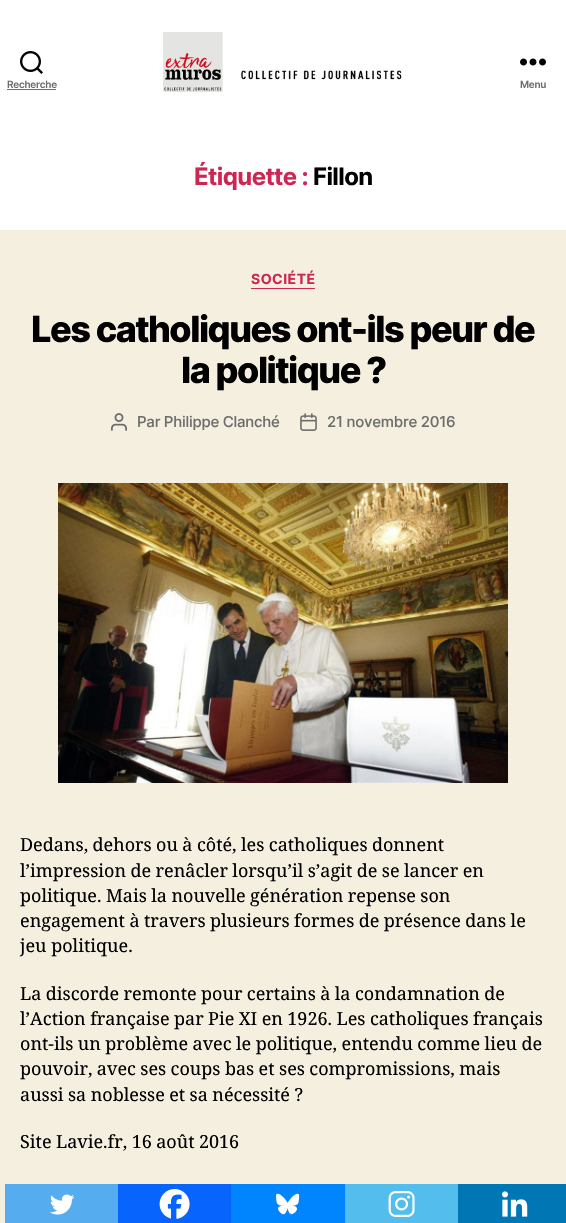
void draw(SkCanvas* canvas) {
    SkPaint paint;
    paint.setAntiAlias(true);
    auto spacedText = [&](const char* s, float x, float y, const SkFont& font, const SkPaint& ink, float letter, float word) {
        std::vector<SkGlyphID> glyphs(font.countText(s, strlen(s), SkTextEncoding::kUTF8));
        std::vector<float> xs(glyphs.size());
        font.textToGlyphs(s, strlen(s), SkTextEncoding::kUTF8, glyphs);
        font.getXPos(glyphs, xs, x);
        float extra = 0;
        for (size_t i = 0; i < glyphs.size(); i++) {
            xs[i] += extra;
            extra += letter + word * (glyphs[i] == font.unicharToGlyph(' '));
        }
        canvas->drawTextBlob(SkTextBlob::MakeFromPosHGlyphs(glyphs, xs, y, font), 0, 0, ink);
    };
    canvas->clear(0xFFF5EFE0);
    paint.setColor(0xFFFFFFFF);
    canvas->drawRect(SkRect::MakeXYWH(0, 0, 566, 230), paint);
    canvas->drawImageRect(SkImages::DeferredFromEncodedData(SkData::MakeFromFileName("img1.png")), SkRect::MakeXYWH(20, 51, 23, 23), SkSamplingOptions());
    SkFont font1(fontMgr->matchFamilyStyle("Inter", SkFontStyle(600, SkFontStyle::kNormal_Width, SkFontStyle::kUpright_Slant)), 10);
    font1.setSubpixel(true);
    paint.setColor(0xFF6D6D6D);
    spacedText("Recherche", 7, 88, font1, paint, -0.25f, 0);
    canvas->drawRect(SkRect::MakeXYWH(7, 89, 49, 1), paint);
    canvas->drawImageRect(SkImages::DeferredFromEncodedData(SkData::MakeFromFileName("img2.png")), SkRect::MakeXYWH(163, 32, 239, 60), SkSamplingOptions());
    canvas->drawImageRect(SkImages::DeferredFromEncodedData(SkData::MakeFromFileName("img3.png")), SkRect::MakeXYWH(520, 58, 26, 8), SkSamplingOptions());
    spacedText("Menu", 520, 88, font1, paint, -0.25f, 0);
    SkFont font2(fontMgr->matchFamilyStyle("Inter", SkFontStyle::Bold()), 24);
    font2.setSubpixel(true);
    paint.setColor(0xFFCD2653);
    spacedText("Étiquette :", 194, 185, font2, paint, -0.6f, 0);
    paint.setColor(0xFF000000);
    spacedText("Fillon", 313, 185, font2, paint, -0.6f, 0);
    paint.setColor(0xFFCD2653);
    canvas->drawRect(SkRect::MakeXYWH(251, 288, 64, 1), paint);
    SkFont font3(fontMgr->matchFamilyStyle("Inter", SkFontStyle::Bold()), 14);
    font3.setSubpixel(true);
    spacedText("SOCIÉTÉ", 251, 284, font3, paint, 0.5f, 0);
    SkFont font4(fontMgr->matchFamilyStyle("Inter", SkFontStyle(800, SkFontStyle::kNormal_Width, SkFontStyle::kUpright_Slant)), 36);
    font4.setSubpixel(true);
    paint.setColor(0xFF000000);
    spacedText("Les catholiques ont-ils peur de", 31, 342, font4, paint, -1.5f, 0);
    spacedText("la politique ?", 181, 383, font4, paint, -1.5f, 0);
    canvas->drawImageRect(SkImages::DeferredFromEncodedData(SkData::MakeFromFileName("img4.png")), SkRect::MakeXYWH(111, 413, 16, 18), SkSamplingOptions());
    SkFont font5(fontMgr->matchFamilyStyle("Inter", SkFontStyle(500, SkFontStyle::kNormal_Width, SkFontStyle::kUpright_Slant)), 15);
    font5.setSubpixel(true);
    paint.setColor(0xFF6D6D6D);
    spacedText("Par Philippe Clanché", 137, 427, font5, paint, -0.25f, 0);
    canvas->drawImageRect(SkImages::DeferredFromEncodedData(SkData::MakeFromFileName("img5.png")), SkRect::MakeXYWH(300, 413, 17, 18), SkSamplingOptions());
    spacedText("21 novembre 2016", 327, 427, font5, paint, -0.25f, 0);
    canvas->drawImageRect(SkImages::DeferredFromEncodedData(SkData::MakeFromFileName("img6.png")), SkRect::MakeXYWH(58, 483, 450, 300), SkSamplingOptions());
    SkFont font6(fontMgr->matchFamilyStyle("Noto Serif", SkFontStyle::Normal()), 18);
    font6.setSubpixel(true);
    paint.setColor(0xFF000000);
    spacedText("Dedans, dehors ou à côté, les catholiques donnent", 20, 851, font6, paint, 0, -0.25f);
    spacedText("l’impression de renâcler lorsqu’il s’agit de se lancer en", 20, 877, font6, paint, 0, -0.25f);
    spacedText("politique. Mais la nouvelle génération repense son", 20, 902, font6, paint, 0, -0.25f);
    spacedText("engagement à travers plusieurs formes de présence dans le", 20, 927, font6, paint, 0, -0.25f);
    canvas->drawString("jeu politique.", 20, 952, font6, paint);
    spacedText("La discorde remonte pour certains à la condamnation de", 20, 1000, font6, paint, 0, -0.25f);
    spacedText("l’Action française par Pie XI en 1926. Les catholiques français", 20, 1025, font6, paint, 0, -0.25f);
    spacedText("ont-ils un problème avec le politique, entendu comme lieu de", 20, 1050, font6, paint, 0, -0.25f);
    spacedText("pouvoir, avec ses coups bas et ses compromissions, mais", 20, 1075, font6, paint, 0, -0.25f);
    spacedText("aussi sa noblesse et sa nécessité ?", 20, 1101, font6, paint, 0, -0.25f);
    spacedText("Site Lavie.fr, 16 août 2016", 20, 1148, font6, paint, 0, -0.25f);
    paint.setColor(0xFF55ACEE);
    canvas->drawRect(SkRect::MakeXYWH(5, 1184, 113, 39), paint);
    canvas->drawImageRect(SkImages::DeferredFromEncodedData(SkData::MakeFromFileName("img7.png")), SkRect::MakeXYWH(50, 1194, 25, 21), SkSamplingOptions());
    paint.setColor(0xFF0765FE);
    canvas->drawRect(SkRect::MakeXYWH(118, 1184, 113, 39), paint);
    canvas->drawImageRect(SkImages::DeferredFromEncodedData(SkData::MakeFromFileName("img8.png")), SkRect::MakeXYWH(159, 1189, 31, 30), SkSamplingOptions());
    paint.setColor(0xFF0085FF);
    canvas->drawRect(SkRect::MakeXYWH(231, 1184, 114, 39), paint);
    canvas->drawImageRect(SkImages::DeferredFromEncodedData(SkData::MakeFromFileName("img9.png")), SkRect::MakeXYWH(276, 1193, 24, 22), SkSamplingOptions());
    paint.setColor(0xFF53BEEE);
    canvas->drawRect(SkRect::MakeXYWH(345, 1184, 113, 39), paint);
    canvas->drawImageRect(SkImages::DeferredFromEncodedData(SkData::MakeFromFileName("img10.png")), SkRect::MakeXYWH(388, 1191, 27, 26), SkSamplingOptions());
    paint.setColor(0xFF0077B5);
    canvas->drawRect(SkRect::MakeXYWH(458, 1184, 108, 39), paint);
    canvas->drawImageRect(SkImages::DeferredFromEncodedData(SkData::MakeFromFileName("img11.png")), SkRect::MakeXYWH(502, 1191, 26, 26), SkSamplingOptions());
}
